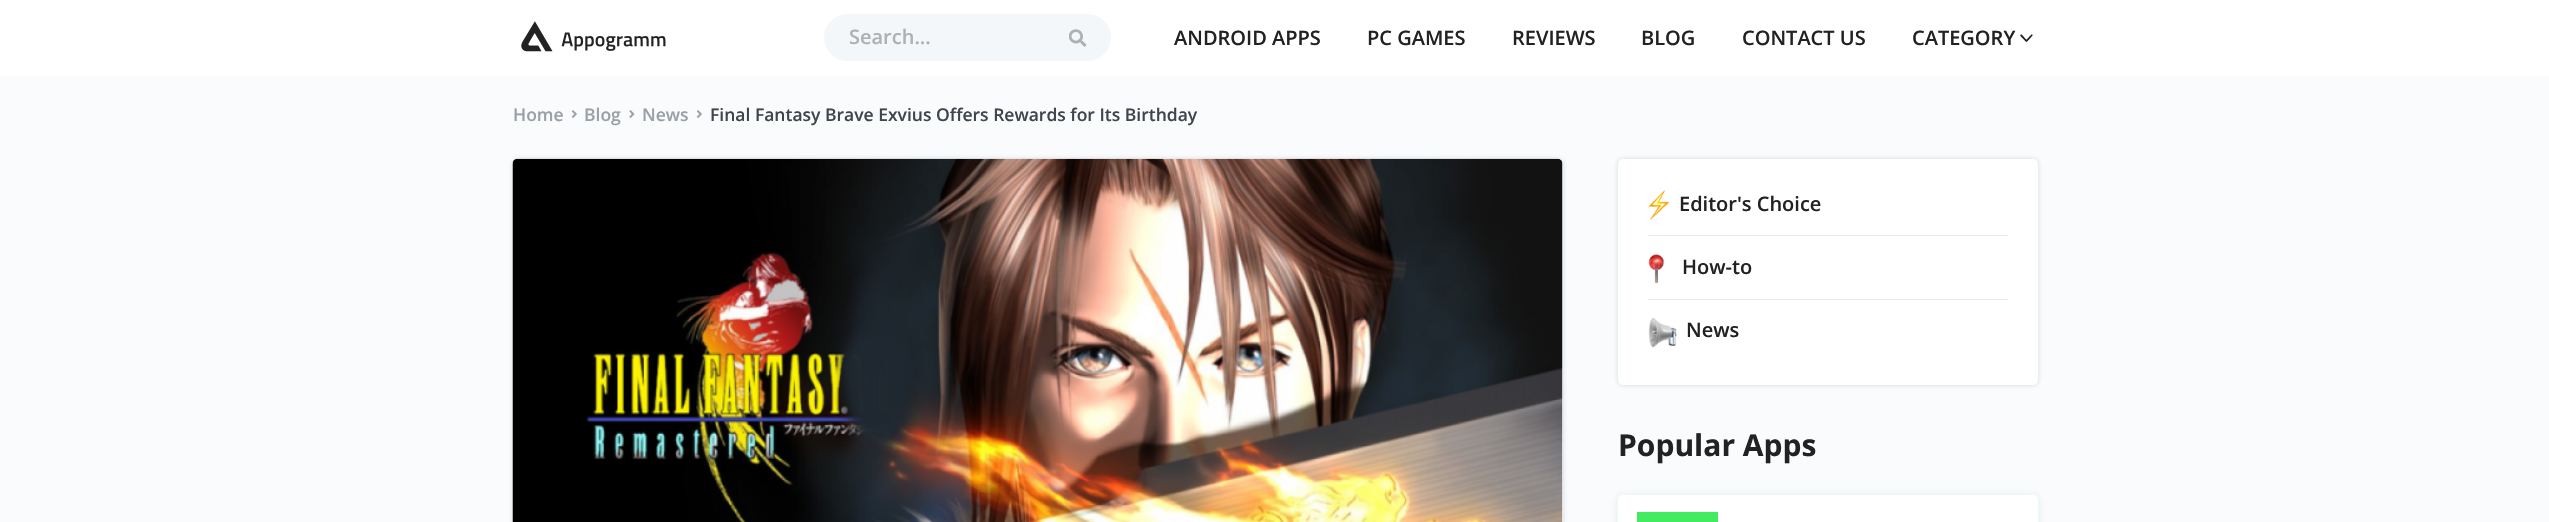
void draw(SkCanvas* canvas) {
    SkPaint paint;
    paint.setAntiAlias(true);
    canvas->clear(0xFFFFFFFF);
    canvas->drawImageRect(SkImages::DeferredFromEncodedData(SkData::MakeFromFileName("img1.png")), SkRect::MakeXYWH(521, 21, 145, 31), SkSamplingOptions());
    paint.setColor(0xFFF4F7F9);
    canvas->drawRoundRect(SkRect::MakeXYWH(824, 14, 287, 47), 23.5f, 23.5f, paint);
    SkFont font1(fontMgr->matchFamilyStyle("Open Sans", SkFontStyle(600, SkFontStyle::kNormal_Width, SkFontStyle::kUpright_Slant)), 20);
    font1.setSubpixel(true);
    paint.setColor(0xFFAEB0B2);
    canvas->drawString("Search...", 849, 44, font1, paint);
    canvas->drawImageRect(SkImages::DeferredFromEncodedData(SkData::MakeFromFileName("img2.png")), SkRect::MakeXYWH(1069, 29, 18, 18), SkSamplingOptions());
    paint.setColor(0xFF222222);
    canvas->drawString("ANDROID APPS", 1174, 45, font1, paint);
    canvas->drawString("PC GAMES", 1367, 45, font1, paint);
    canvas->drawString("REVIEWS", 1512, 45, font1, paint);
    canvas->drawString("BLOG", 1641, 45, font1, paint);
    canvas->drawString("CONTACT US", 1742, 45, font1, paint);
    canvas->drawString("CATEGORY", 1912, 45, font1, paint);
    canvas->drawImageRect(SkImages::DeferredFromEncodedData(SkData::MakeFromFileName("img3.png")), SkRect::MakeXYWH(2020, 34, 13, 8), SkSamplingOptions());
    paint.setColor(0xFFF9FBFC);
    canvas->drawRect(SkRect::MakeXYWH(0, 76, 2549, 446), paint);
    SkFont font2(fontMgr->matchFamilyStyle("Open Sans", SkFontStyle(600, SkFontStyle::kNormal_Width, SkFontStyle::kUpright_Slant)), 17.5f);
    font2.setSubpixel(true);
    paint.setColor(0xFF9AA0A6);
    canvas->drawString("Home", 513, 121, font2, paint);
    canvas->drawImageRect(SkImages::DeferredFromEncodedData(SkData::MakeFromFileName("img4.png")), SkRect::MakeXYWH(571, 110, 6, 8), SkSamplingOptions());
    canvas->drawString("Blog", 584, 121, font2, paint);
    canvas->drawImageRect(SkImages::DeferredFromEncodedData(SkData::MakeFromFileName("img5.png")), SkRect::MakeXYWH(629, 110, 6, 8), SkSamplingOptions());
    canvas->drawString("News", 642, 121, font2, paint);
    canvas->drawImageRect(SkImages::DeferredFromEncodedData(SkData::MakeFromFileName("img4.png")), SkRect::MakeXYWH(696, 110, 6, 8), SkSamplingOptions());
    paint.setColor(0xFF40454D);
    canvas->drawString("Final Fantasy Brave Exvius Offers Rewards for Its Birthday", 710, 121, font2, paint);
    paint.setColor(0x290F3E56);
    paint.setMaskFilter(SkMaskFilter::MakeBlur(kNormal_SkBlurStyle, 2.5f));
    canvas->drawRoundRect(SkRect::MakeXYWH(513, 159, 1050, 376), 5, 5, paint);
    paint.setMaskFilter(nullptr);
    paint.setColor(0xFFFFFFFF);
    canvas->drawRoundRect(SkRect::MakeXYWH(513, 159, 1050, 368), 5, 5, paint);
    canvas->drawImageRect(SkImages::DeferredFromEncodedData(SkData::MakeFromFileName("img6.png")), SkRect::MakeXYWH(512, 158, 1051, 364), SkSamplingOptions());
    paint.setColor(0x290F3E56);
    paint.setMaskFilter(SkMaskFilter::MakeBlur(kNormal_SkBlurStyle, 2.5f));
    canvas->drawRoundRect(SkRect::MakeXYWH(1618, 159, 420, 226), 5, 5, paint);
    paint.setMaskFilter(nullptr);
    paint.setColor(0xFFFFFFFF);
    canvas->drawRoundRect(SkRect::MakeXYWH(1618, 159, 420, 226), 5, 5, paint);
    paint.setColor(0xFFE6EAED);
    canvas->drawRect(SkRect::MakeXYWH(1648, 235, 360, 1), paint);
    canvas->drawImageRect(SkImages::DeferredFromEncodedData(SkData::MakeFromFileName("img7.png")), SkRect::MakeXYWH(1648, 190, 21, 30), SkSamplingOptions());
    paint.setColor(0xFF222222);
    canvas->drawString("Editor's Choice", 1679, 211, font1, paint);
    paint.setColor(0xFFE6EAED);
    canvas->drawRect(SkRect::MakeXYWH(1648, 299, 360, 1), paint);
    canvas->drawImageRect(SkImages::DeferredFromEncodedData(SkData::MakeFromFileName("img8.png")), SkRect::MakeXYWH(1648, 254, 17, 30), SkSamplingOptions());
    paint.setColor(0xFF222222);
    canvas->drawString("How-to", 1682, 274, font1, paint);
    canvas->drawImageRect(SkImages::DeferredFromEncodedData(SkData::MakeFromFileName("img9.png")), SkRect::MakeXYWH(1648, 317, 29, 31), SkSamplingOptions());
    canvas->drawString("News", 1686, 337, font1, paint);
    SkFont font3(fontMgr->matchFamilyStyle("Open Sans", SkFontStyle::Bold()), 30);
    font3.setSubpixel(true);
    canvas->drawString("Popular Apps", 1618, 456, font3, paint);
    paint.setColor(0x66B9D2DF);
    paint.setMaskFilter(SkMaskFilter::MakeBlur(kNormal_SkBlurStyle, 4));
    canvas->drawRoundRect(SkRect::MakeXYWH(1618, 496, 420, 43), 5, 5, paint);
    paint.setMaskFilter(nullptr);
    paint.setColor(0xFFFFFFFF);
    canvas->drawRoundRect(SkRect::MakeXYWH(1618, 495, 420, 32), 5, 5, paint);
    paint.setColor(0xFF43EB61);
    canvas->drawRect(SkRect::MakeXYWH(1637, 512, 81, 10), paint);
}
